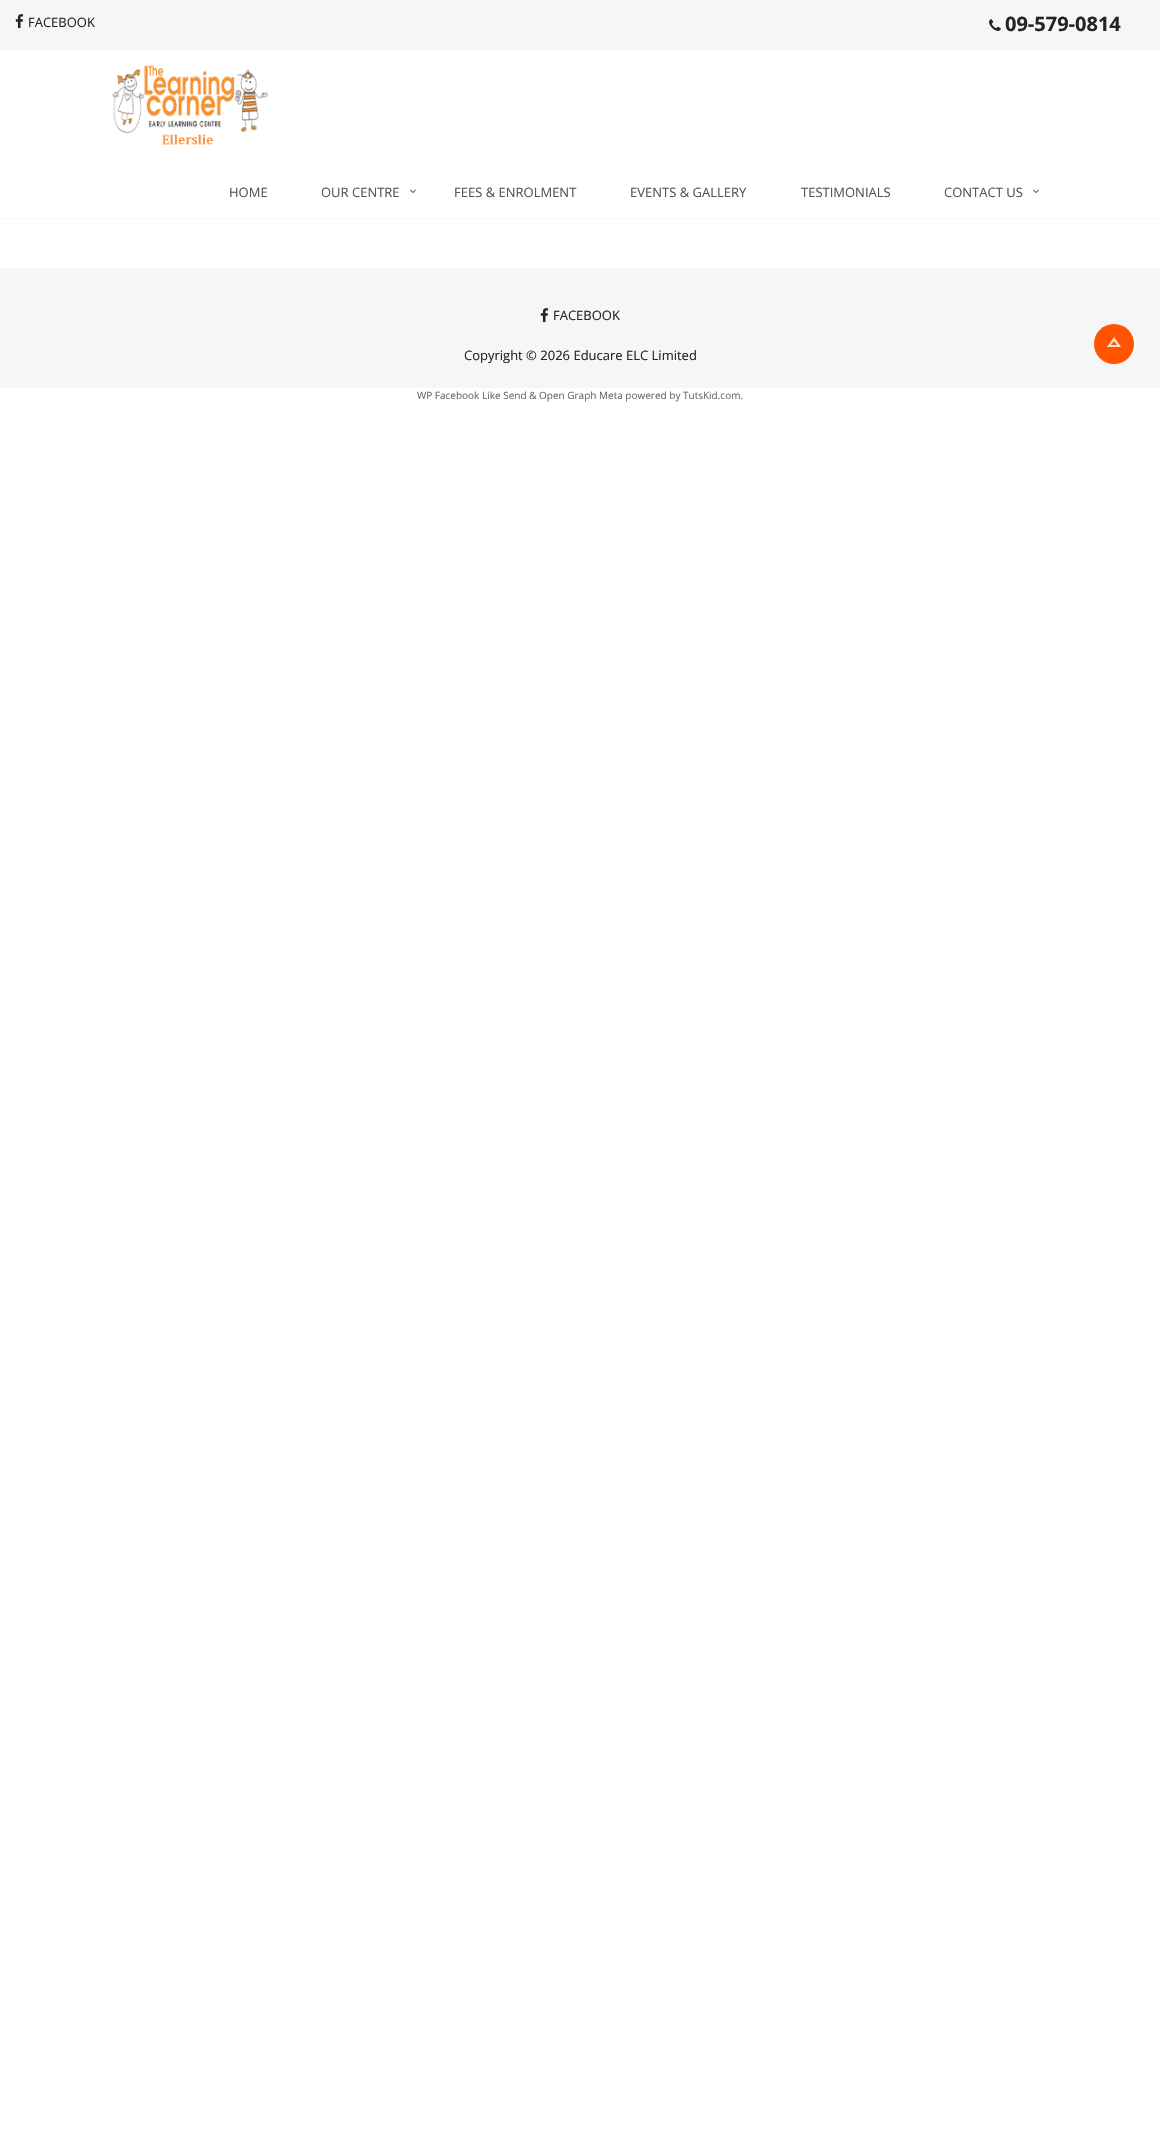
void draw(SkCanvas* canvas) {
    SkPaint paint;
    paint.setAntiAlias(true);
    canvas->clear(0xFFFFFFFF);
    paint.setColor(0xFFF6F6F6);
    canvas->drawRect(SkRect::MakeXYWH(0, 0, 1160, 50), paint);
    canvas->drawImageRect(SkImages::DeferredFromEncodedData(SkData::MakeFromFileName("img1.png")), SkRect::MakeXYWH(15, 14, 9, 15), SkSamplingOptions());
    SkFont font1(fontMgr->matchFamilyStyle("Open Sans", SkFontStyle::Normal()), 13);
    font1.setSubpixel(true);
    paint.setColor(0xFF252525);
    canvas->drawString("FACEBOOK", 28, 27, font1, paint);
    canvas->drawImageRect(SkImages::DeferredFromEncodedData(SkData::MakeFromFileName("img2.png")), SkRect::MakeXYWH(989, 19, 12, 12), SkSamplingOptions());
    SkFont font2(fontMgr->matchFamilyStyle("Open Sans", SkFontStyle::Bold()), 20);
    font2.setSubpixel(true);
    canvas->drawString("09-579-0814", 1005, 31, font2, paint);
    paint.setColor(0xFFF6F6F6);
    canvas->drawRect(SkRect::MakeXYWH(0, 218, 1160, 1), paint);
    canvas->drawImageRect(SkImages::DeferredFromEncodedData(SkData::MakeFromFileName("img3.png")), SkRect::MakeXYWH(112, 65, 157, 80), SkSamplingOptions());
    paint.setColor(0xFF555555);
    canvas->drawString("HOME", 229, 197, font1, paint);
    canvas->drawString("OUR CENTRE", 321, 197, font1, paint);
    canvas->drawImageRect(SkImages::DeferredFromEncodedData(SkData::MakeFromFileName("img4.png")), SkRect::MakeXYWH(410, 189, 6, 5), SkSamplingOptions());
    canvas->drawString("FEES & ENROLMENT", 454, 197, font1, paint);
    canvas->drawString("EVENTS & GALLERY", 630, 197, font1, paint);
    canvas->drawString("TESTIMONIALS", 801, 197, font1, paint);
    canvas->drawString("CONTACT US", 944, 197, font1, paint);
    canvas->drawImageRect(SkImages::DeferredFromEncodedData(SkData::MakeFromFileName("img4.png")), SkRect::MakeXYWH(1033, 189, 6, 5), SkSamplingOptions());
    paint.setColor(0xFFF6F6F6);
    canvas->drawRect(SkRect::MakeXYWH(0, 268, 1160, 120), paint);
    canvas->drawImageRect(SkImages::DeferredFromEncodedData(SkData::MakeFromFileName("img1.png")), SkRect::MakeXYWH(540, 308, 9, 15), SkSamplingOptions());
    paint.setColor(0xFF252525);
    canvas->drawString("FACEBOOK", 553, 320, font1, paint);
    canvas->drawString("Copyright © 2026 Educare ELC Limited", 464, 360, font1, paint);
    paint.setColor(0xFFFF5500);
    canvas->drawCircle(1114, 344, 20, paint);
    paint.setColor(0xFFFFDDCC);
    canvas->drawPath(SkPathBuilder().moveTo(1121, 347).lineTo(1107, 347).lineTo(1114, 337).close().detach(), paint);
    paint.setColor(0xFFFF5500);
    canvas->drawPath(SkPathBuilder().moveTo(1117, 345).lineTo(1111, 345).lineTo(1114, 341).close().detach(), paint);
    SkFont font3(fontMgr->matchFamilyStyle("Open Sans", SkFontStyle::Normal()), 10);
    font3.setSubpixel(true);
    paint.setColor(0xFF666666);
    canvas->drawString("WP Facebook Like Send & Open Graph Meta powered by TutsKid.com.", 417, 399, font3, paint);
}
